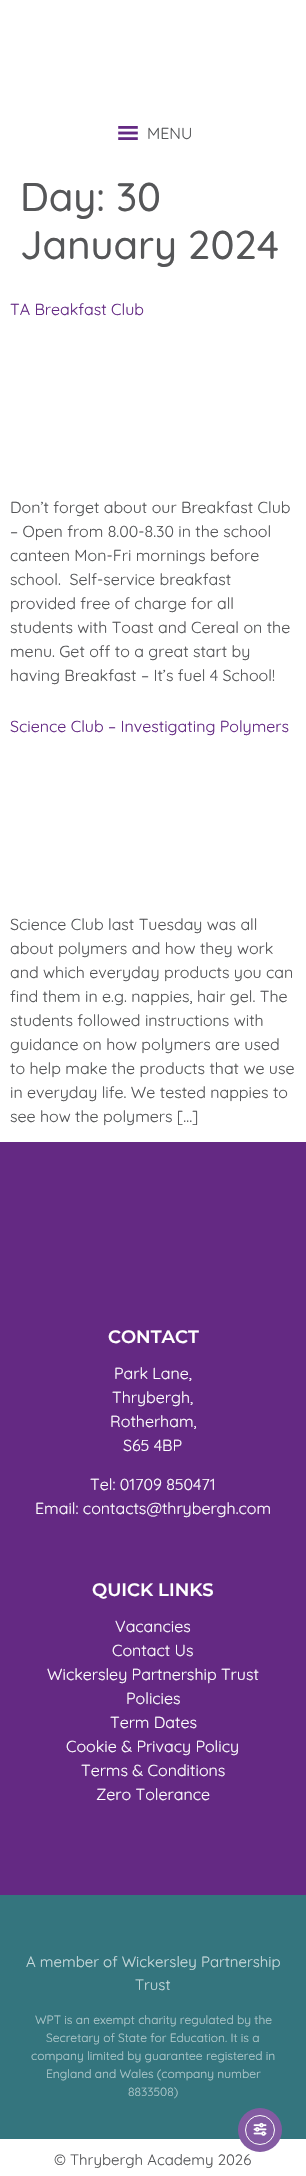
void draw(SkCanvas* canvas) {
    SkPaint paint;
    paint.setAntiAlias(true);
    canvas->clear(0xFFFFFFFF);
    canvas->drawImageRect(SkImages::DeferredFromEncodedData(SkData::MakeFromFileName("img1.png")), SkRect::MakeXYWH(118, 126, 20, 14), SkSamplingOptions());
    SkFont font1(fontMgr->matchFamilyStyle("Quicksand", SkFontStyle::Normal()), 16);
    font1.setSubpixel(true);
    paint.setColor(0xFF555658);
    canvas->drawString("MENU", 147, 139, font1, paint);
    SkFont font2(fontMgr->matchFamilyStyle("Quicksand", SkFontStyle(500, SkFontStyle::kNormal_Width, SkFontStyle::kUpright_Slant)), 40);
    font2.setSubpixel(true);
    canvas->drawString("Day: 30", 20, 211, font2, paint);
    canvas->drawString("January 2024", 20, 259, font2, paint);
    paint.setColor(0xFF642983);
    canvas->drawString("TA Breakfast Club", 10, 315, font1, paint);
    paint.setColor(0xFF555658);
    canvas->drawString("Don’t forget about our Breakfast Club", 10, 513, font1, paint);
    canvas->drawString("– Open from 8.00-8.30 in the school", 10, 537, font1, paint);
    canvas->drawString("canteen Mon-Fri mornings before", 10, 561, font1, paint);
    canvas->drawString("school.  Self-service breakfast", 10, 585, font1, paint);
    canvas->drawString("provided free of charge for all", 10, 609, font1, paint);
    canvas->drawString("students with Toast and Cereal on the", 10, 633, font1, paint);
    canvas->drawString("menu. Get off to a great start by", 10, 657, font1, paint);
    canvas->drawString("having Breakfast – It’s fuel 4 School!", 10, 681, font1, paint);
    paint.setColor(0xFF642983);
    canvas->drawString("Science Club – Investigating Polymers", 10, 732, font1, paint);
    paint.setColor(0xFF555658);
    canvas->drawString("Science Club last Tuesday was all", 10, 930, font1, paint);
    canvas->drawString("about polymers and how they work", 10, 954, font1, paint);
    canvas->drawString("and which everyday products you can", 10, 978, font1, paint);
    canvas->drawString("find them in e.g. nappies, hair gel. The", 10, 1002, font1, paint);
    canvas->drawString("students followed instructions with", 10, 1026, font1, paint);
    canvas->drawString("guidance on how polymers are used", 10, 1050, font1, paint);
    canvas->drawString("to help make the products that we use", 10, 1074, font1, paint);
    canvas->drawString("in everyday life. We tested nappies to", 10, 1098, font1, paint);
    canvas->drawString("see how the polymers […]", 10, 1122, font1, paint);
    paint.setColor(0xFF642983);
    canvas->drawRect(SkRect::MakeXYWH(0, 1142, 306, 753), paint);
    SkFont font3(fontMgr->matchFamilyStyle("Montserrat", SkFontStyle(600, SkFontStyle::kNormal_Width, SkFontStyle::kUpright_Slant)), 18);
    font3.setSubpixel(true);
    paint.setColor(0xFFFFFFFF);
    canvas->drawString("CONTACT", 108, 1343, font3, paint);
    canvas->drawString("Park Lane,", 114, 1379, font1, paint);
    canvas->drawString("Thrybergh,", 112, 1403, font1, paint);
    canvas->drawString("Rotherham,", 110, 1427, font1, paint);
    canvas->drawString("S65 4BP", 123, 1451, font1, paint);
    canvas->drawString("Tel: 01709 850471", 90, 1490, font1, paint);
    canvas->drawString("Email: contacts@thrybergh.com", 35, 1514, font1, paint);
    canvas->drawString("QUICK LINKS", 92, 1596, font3, paint);
    canvas->drawString("Vacancies", 115, 1632, font1, paint);
    canvas->drawString("Contact Us", 112, 1656, font1, paint);
    canvas->drawString("Wickersley Partnership Trust", 47, 1680, font1, paint);
    canvas->drawString("Policies", 126, 1704, font1, paint);
    canvas->drawString("Term Dates", 110, 1728, font1, paint);
    canvas->drawString("Cookie & Privacy Policy", 66, 1752, font1, paint);
    canvas->drawString("Terms & Conditions", 81, 1776, font1, paint);
    canvas->drawString("Zero Tolerance", 96, 1800, font1, paint);
    paint.setColor(0xFF34757E);
    canvas->drawRect(SkRect::MakeXYWH(0, 1895, 306, 244), paint);
    SkFont font4(fontMgr->matchFamilyStyle("Quicksand", SkFontStyle::Normal()), 15);
    font4.setSubpixel(true);
    paint.setColor(0xFFC8DADC);
    canvas->drawString("A member of Wickersley Partnership", 26, 1967, font4, paint);
    canvas->drawString("Trust", 135, 1990, font4, paint);
    SkFont font5(fontMgr->matchFamilyStyle("Quicksand", SkFontStyle::Normal()), 12);
    font5.setSubpixel(true);
    paint.setColor(0xFFAEC8CB);
    canvas->drawString("WPT is an exempt charity regulated by the", 35, 2024, font5, paint);
    canvas->drawString("Secretary of State for Education. It is a", 46, 2042, font5, paint);
    canvas->drawString("company limited by guarantee registered in", 31, 2060, font5, paint);
    canvas->drawString("England and Wales (company number", 46, 2078, font5, paint);
    canvas->drawString("8833508)", 128, 2096, font5, paint);
    paint.setColor(0xFF555658);
    canvas->drawString("© Thrybergh Academy 2026", 54, 2165, font4, paint);
    paint.setColor(0xFF845BA2);
    canvas->drawCircle(260, 2130, 22, paint);
    paint.setStyle(SkPaint::kStroke_Style);
    paint.setStrokeWidth(1);
    paint.setColor(0xFFFFFFFF);
    canvas->drawCircle(260, 2130, 14.5f, paint);
    canvas->drawImageRect(SkImages::DeferredFromEncodedData(SkData::MakeFromFileName("img2.png")), SkRect::MakeXYWH(253, 2122, 14, 14), SkSamplingOptions());
}
